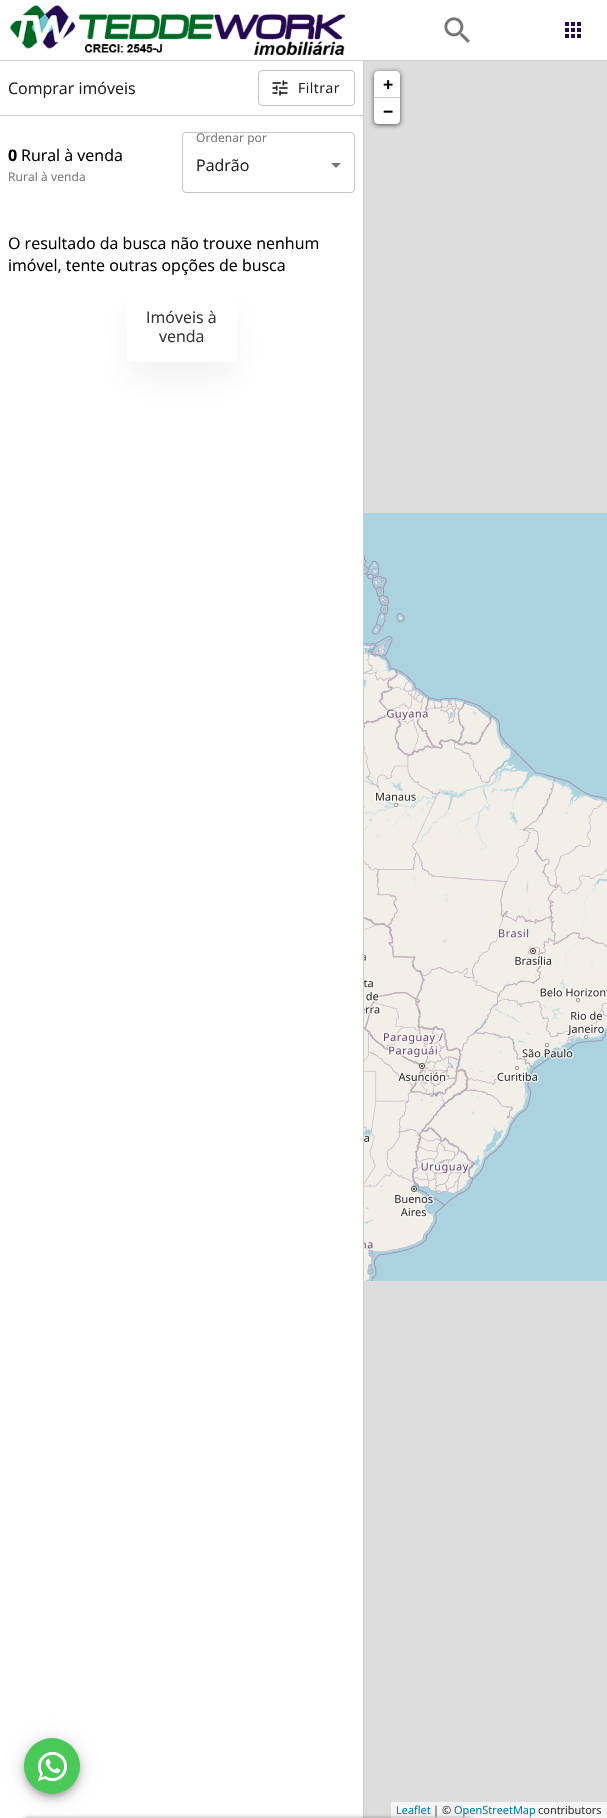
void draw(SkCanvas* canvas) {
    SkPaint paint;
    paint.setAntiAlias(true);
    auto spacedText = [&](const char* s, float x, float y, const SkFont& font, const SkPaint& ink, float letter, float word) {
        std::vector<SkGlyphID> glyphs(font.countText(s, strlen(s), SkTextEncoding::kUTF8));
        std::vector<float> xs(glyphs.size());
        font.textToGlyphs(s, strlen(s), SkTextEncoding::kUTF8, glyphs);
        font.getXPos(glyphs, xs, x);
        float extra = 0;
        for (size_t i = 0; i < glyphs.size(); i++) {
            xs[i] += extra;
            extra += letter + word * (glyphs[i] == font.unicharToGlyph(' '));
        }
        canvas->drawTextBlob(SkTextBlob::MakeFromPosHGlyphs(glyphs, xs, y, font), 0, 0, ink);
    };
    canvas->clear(0xFFFFFFFF);
    canvas->drawImageRect(SkImages::DeferredFromEncodedData(SkData::MakeFromFileName("img1.png")), SkRect::MakeXYWH(10, 5, 335, 50), SkSamplingOptions());
    canvas->drawImageRect(SkImages::DeferredFromEncodedData(SkData::MakeFromFileName("img2.png")), SkRect::MakeXYWH(444, 17, 26, 26), SkSamplingOptions());
    canvas->drawImageRect(SkImages::DeferredFromEncodedData(SkData::MakeFromFileName("img3.png")), SkRect::MakeXYWH(565, 22, 16, 16), SkSamplingOptions());
    paint.setColor(0xFFCECECE);
    canvas->drawRect(SkRect::MakeXYWH(0, 60, 607, 1), paint);
    canvas->drawRect(SkRect::MakeXYWH(363, 61, 1, 1757), paint);
    canvas->drawRect(SkRect::MakeXYWH(0, 115, 363, 1), paint);
    SkFont font1(fontMgr->matchFamilyStyle("Open Sans", SkFontStyle::Normal()), 16);
    font1.setSubpixel(true);
    paint.setColor(0xFF212121);
    canvas->drawString("Comprar imóveis", 8, 94, font1, paint);
    paint.setStyle(SkPaint::kStroke_Style);
    paint.setStrokeWidth(1);
    paint.setColor(0xFFC4C4C4);
    canvas->drawRoundRect(SkRect::MakeXYWH(258.5f, 70.5f, 96, 35), 3.5f, 3.5f, paint);
    canvas->drawImageRect(SkImages::DeferredFromEncodedData(SkData::MakeFromFileName("img4.png")), SkRect::MakeXYWH(272, 80, 16, 16), SkSamplingOptions());
    SkFont font2(fontMgr->matchFamilyStyle("Open Sans", SkFontStyle::Normal()), 14);
    font2.setSubpixel(true);
    paint.setStyle(SkPaint::kFill_Style);
    paint.setColor(0xFF212121);
    spacedText("Filtrar", 298, 93, font2, paint, 0.5f, 0);
    SkFont font3(fontMgr->matchFamilyStyle("Open Sans", SkFontStyle::Bold()), 16);
    font3.setSubpixel(true);
    paint.setColor(0xFF000000);
    canvas->drawString("0", 8, 161, font3, paint);
    canvas->drawString("Rural à venda", 21, 161, font1, paint);
    SkFont font4(fontMgr->matchFamilyStyle("Open Sans", SkFontStyle::Normal()), 12);
    font4.setSubpixel(true);
    paint.setColor(0xFF757575);
    spacedText("Rural à venda", 8, 181, font4, paint, 0.1f, 0);
    canvas->drawPath(SkPathBuilder().moveTo(331, 163).lineTo(336, 168).lineTo(341, 163).close().detach(), paint);
    paint.setStyle(SkPaint::kStroke_Style);
    paint.setColor(0xFFC4C4C4);
    canvas->drawRoundRect(SkRect::MakeXYWH(182.5f, 132.5f, 172, 60), 3.5f, 3.5f, paint);
    paint.setStyle(SkPaint::kFill_Style);
    paint.setColor(0xFF757575);
    spacedText("Ordenar por", 196, 142, font4, paint, 0.1f, 0);
    paint.setColor(0xFF212121);
    canvas->drawString("Padrão", 196, 171, font1, paint);
    paint.setColor(0xFF000000);
    canvas->drawString("O resultado da busca não trouxe nenhum", 8, 249, font1, paint);
    canvas->drawString("imóvel, tente outras opções de busca", 8, 271, font1, paint);
    canvas->save();
    canvas->clipPath(SkPathBuilder(SkPathFillType::kEvenOdd).moveTo(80, 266).lineTo(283, 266).lineTo(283, 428).lineTo(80, 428).close().moveTo(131, 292).lineTo(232, 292).cubicTo(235, 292, 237, 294, 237, 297).lineTo(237, 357).cubicTo(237, 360, 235, 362, 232, 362).lineTo(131, 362).cubicTo(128, 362, 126, 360, 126, 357).lineTo(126, 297).cubicTo(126, 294, 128, 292, 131, 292).close().detach(), true);
    paint.setColor(0x0F333333);
    paint.setMaskFilter(SkMaskFilter::MakeBlur(kNormal_SkBlurStyle, 15));
    canvas->drawRoundRect(SkRect::MakeXYWH(126, 312, 111, 70), 5, 5, paint);
    paint.setMaskFilter(nullptr);
    canvas->restore();
    paint.setColor(0xFF333333);
    canvas->drawString("Imóveis à", 146, 323, font1, paint);
    canvas->drawString("venda", 159, 342, font1, paint);
    paint.setColor(0xFFDDDDDD);
    canvas->drawRect(SkRect::MakeXYWH(364, 61, 243, 1757), paint);
    paint.setColor(0xA6000000);
    paint.setMaskFilter(SkMaskFilter::MakeBlur(kNormal_SkBlurStyle, 2.5f));
    canvas->drawRoundRect(SkRect::MakeXYWH(374, 72, 26, 53), 4, 4, paint);
    paint.setMaskFilter(nullptr);
    paint.setColor(0xFFFFFFFF);
    canvas->drawPath(SkPathBuilder().moveTo(378, 71).lineTo(396, 71).cubicTo(398, 71, 400, 73, 400, 75).lineTo(400, 98).lineTo(374, 98).lineTo(374, 75).cubicTo(374, 73, 376, 71, 378, 71).close().detach(), paint);
    paint.setColor(0xFFCCCCCC);
    canvas->drawRect(SkRect::MakeXYWH(374, 97, 26, 1), paint);
    SkFont font5(fontMgr->matchFamilyStyle("Open Sans", SkFontStyle::Bold()), 18);
    font5.setSubpixel(true);
    paint.setColor(0xFF000000);
    canvas->drawString("+", 383, 91, font5, paint);
    paint.setColor(0xFFFFFFFF);
    canvas->drawPath(SkPathBuilder().moveTo(374, 98).lineTo(400, 98).lineTo(400, 120).cubicTo(400, 122, 398, 124, 396, 124).lineTo(378, 124).cubicTo(376, 124, 374, 122, 374, 120).close().detach(), paint);
    paint.setColor(0xFF000000);
    canvas->drawString("−", 383, 118, font5, paint);
    paint.setColor(0xFFF5F5F5);
    canvas->drawRect(SkRect::MakeXYWH(391, 1802, 216, 16), paint);
    SkFont font6(fontMgr->matchFamilyStyle("Open Sans", SkFontStyle::Normal()), 11);
    font6.setSubpixel(true);
    paint.setColor(0xFF0078A8);
    canvas->drawString("Leaflet", 396, 1814, font6, paint);
    paint.setColor(0xFF333333);
    canvas->drawString("| ©", 433, 1814, font6, paint);
    paint.setColor(0xFF0078A8);
    canvas->drawString("OpenStreetMap", 454, 1814, font6, paint);
    paint.setColor(0xFF333333);
    canvas->drawString("contributors", 538, 1814, font6, paint);
    canvas->drawImageRect(SkImages::DeferredFromEncodedData(SkData::MakeFromFileName("img5.png")), SkRect::MakeXYWH(364, 513, 202, 256), SkSamplingOptions());
    paint.setColor(0xFFAAD3DF);
    canvas->drawRect(SkRect::MakeXYWH(566, 513, 41, 256), paint);
    canvas->drawImageRect(SkImages::DeferredFromEncodedData(SkData::MakeFromFileName("img6.png")), SkRect::MakeXYWH(364, 769, 202, 256), SkSamplingOptions());
    canvas->drawImageRect(SkImages::DeferredFromEncodedData(SkData::MakeFromFileName("img7.png")), SkRect::MakeXYWH(566, 769, 41, 256), SkSamplingOptions());
    canvas->drawImageRect(SkImages::DeferredFromEncodedData(SkData::MakeFromFileName("img8.png")), SkRect::MakeXYWH(364, 1025, 202, 256), SkSamplingOptions());
    canvas->drawImageRect(SkImages::DeferredFromEncodedData(SkData::MakeFromFileName("img9.png")), SkRect::MakeXYWH(566, 1025, 41, 256), SkSamplingOptions());
    paint.setColor(0x1F000000);
    paint.setMaskFilter(SkMaskFilter::MakeBlur(kNormal_SkBlurStyle, 9));
    canvas->drawRoundRect(SkRect::MakeXYWH(24, 1739, 56, 56), 28, 28, paint);
    paint.setMaskFilter(nullptr);
    paint.setColor(0x24000000);
    paint.setMaskFilter(SkMaskFilter::MakeBlur(kNormal_SkBlurStyle, 5));
    canvas->drawRoundRect(SkRect::MakeXYWH(24, 1744, 56, 56), 28, 28, paint);
    paint.setMaskFilter(nullptr);
    paint.setColor(0x33000000);
    paint.setMaskFilter(SkMaskFilter::MakeBlur(kNormal_SkBlurStyle, 2.5f));
    canvas->drawRoundRect(SkRect::MakeXYWH(25, 1742, 54, 54), 27, 27, paint);
    paint.setMaskFilter(nullptr);
    paint.setColor(0xFF4AC959);
    canvas->drawCircle(52, 1766, 28, paint);
    canvas->drawImageRect(SkImages::DeferredFromEncodedData(SkData::MakeFromFileName("img10.png")), SkRect::MakeXYWH(37, 1751, 31, 31), SkSamplingOptions());
    paint.setColor(0x66000000);
    paint.setMaskFilter(SkMaskFilter::MakeBlur(kNormal_SkBlurStyle, 2));
    canvas->drawRoundRect(SkRect::MakeXYWH(23, 1818, 450, 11), 5, 5, paint);
    paint.setMaskFilter(nullptr);
}
